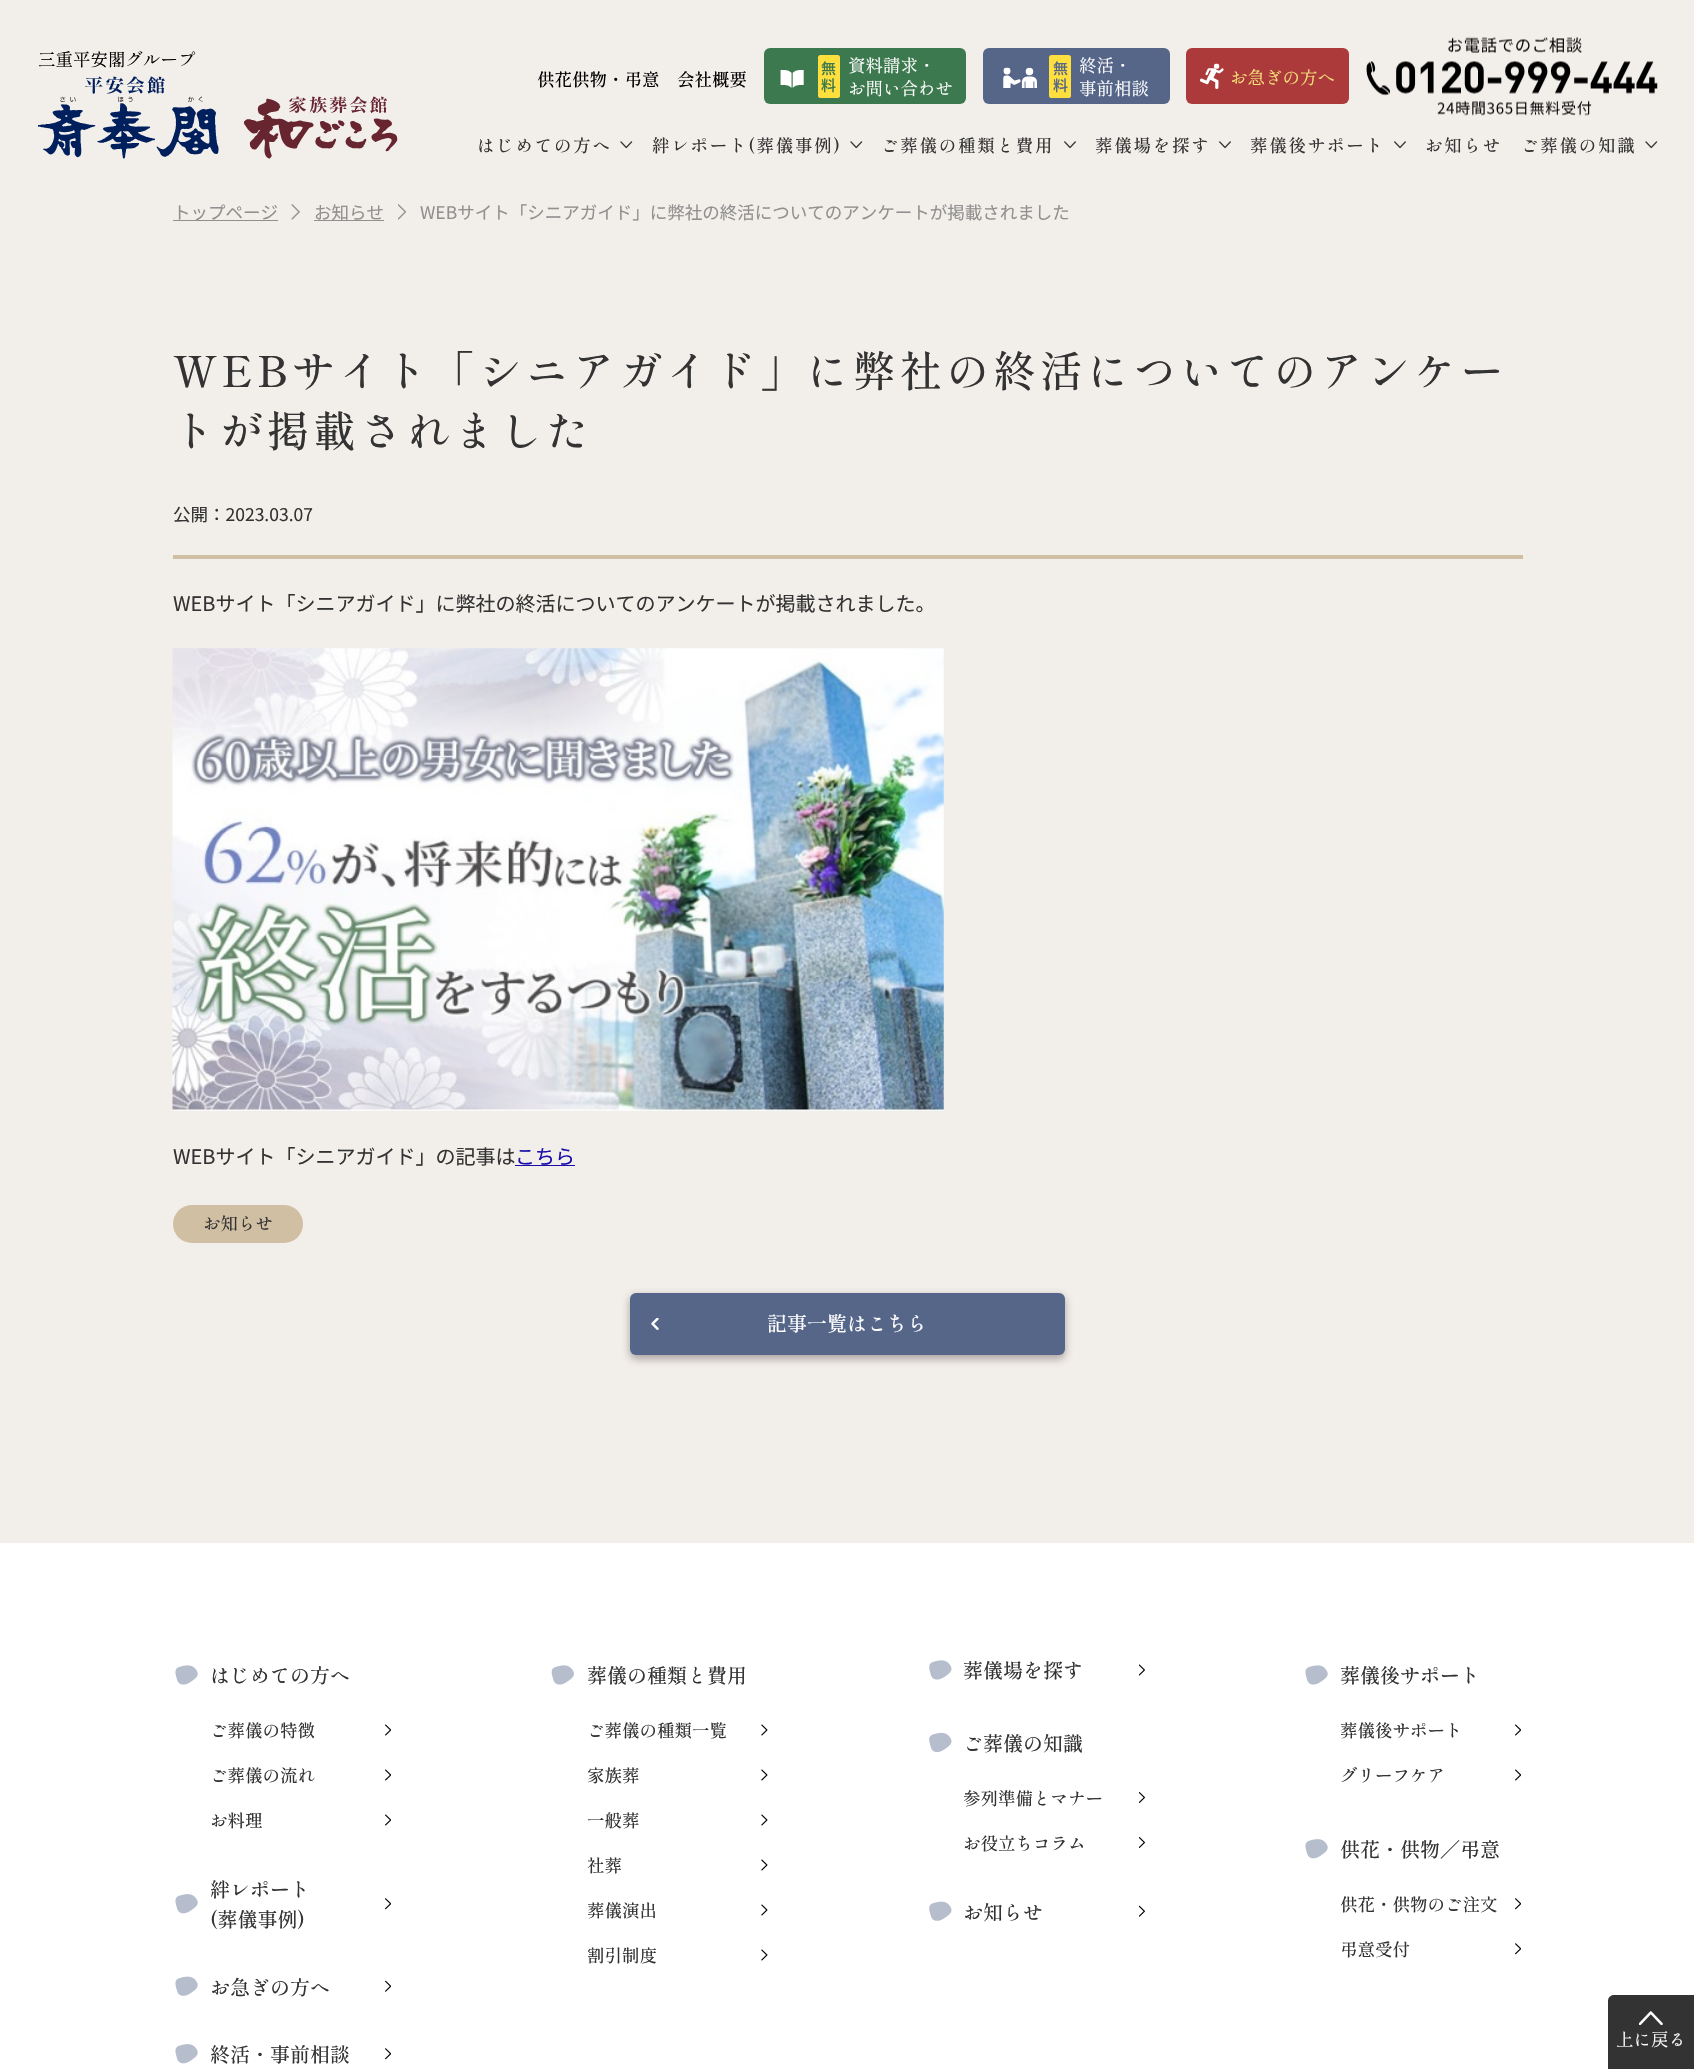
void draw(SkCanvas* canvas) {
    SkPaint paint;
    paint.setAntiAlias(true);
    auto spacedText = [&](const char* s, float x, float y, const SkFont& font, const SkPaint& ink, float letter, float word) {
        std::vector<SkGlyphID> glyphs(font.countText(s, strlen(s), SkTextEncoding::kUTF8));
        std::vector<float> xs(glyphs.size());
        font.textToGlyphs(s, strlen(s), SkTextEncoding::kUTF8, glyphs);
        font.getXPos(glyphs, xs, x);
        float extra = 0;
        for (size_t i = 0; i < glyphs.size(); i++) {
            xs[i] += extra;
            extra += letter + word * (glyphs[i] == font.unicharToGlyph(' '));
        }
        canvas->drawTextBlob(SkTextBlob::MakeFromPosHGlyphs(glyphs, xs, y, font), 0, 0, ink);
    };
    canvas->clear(0xFFF2EEEA);
    SkFont font1(fontMgr->matchFamilyStyle("Shippori Mincho", SkFontStyle::Normal()), 17.5f);
    font1.setSubpixel(true);
    paint.setColor(0xFF000000);
    canvas->drawString("三重平安閣グループ", 38, 66, font1, paint);
    canvas->drawImageRect(SkImages::DeferredFromEncodedData(SkData::MakeFromFileName("img1.png")), SkRect::MakeXYWH(38, 76, 181, 83), SkSamplingOptions());
    canvas->drawImageRect(SkImages::DeferredFromEncodedData(SkData::MakeFromFileName("img2.png")), SkRect::MakeXYWH(244, 96, 154, 63), SkSamplingOptions());
    SkFont font2(fontMgr->matchFamilyStyle("Shippori Mincho", SkFontStyle(500, SkFontStyle::kNormal_Width, SkFontStyle::kUpright_Slant)), 17.5f);
    font2.setSubpixel(true);
    canvas->drawString("供花供物・弔意", 537, 86, font2, paint);
    canvas->drawString("会社概要", 677, 86, font2, paint);
    paint.setColor(0xFF3D794E);
    canvas->drawRoundRect(SkRect::MakeXYWH(764, 48, 202, 56), 6, 6, paint);
    canvas->drawImageRect(SkImages::DeferredFromEncodedData(SkData::MakeFromFileName("img3.png")), SkRect::MakeXYWH(780, 70, 24, 18), SkSamplingOptions());
    paint.setColor(0xFFFFDF3E);
    canvas->drawRoundRect(SkRect::MakeXYWH(818, 55, 22, 43), 2.5f, 2.5f, paint);
    SkFont font3(fontMgr->matchFamilyStyle("Noto Sans JP", SkFontStyle(500, SkFontStyle::kNormal_Width, SkFontStyle::kUpright_Slant)), 15);
    font3.setSubpixel(true);
    paint.setColor(0xFF3D794E);
    canvas->drawString("無", 821, 74, font3, paint);
    canvas->drawString("料", 821, 91, font3, paint);
    paint.setColor(0xFFFFFFFF);
    canvas->drawString("資料請求・", 848, 72, font1, paint);
    canvas->drawString("お問い合わせ", 848, 95, font1, paint);
    paint.setColor(0xFF566689);
    canvas->drawRoundRect(SkRect::MakeXYWH(983, 48, 187, 56), 6, 6, paint);
    canvas->drawImageRect(SkImages::DeferredFromEncodedData(SkData::MakeFromFileName("img4.png")), SkRect::MakeXYWH(1003, 67, 34, 21), SkSamplingOptions());
    paint.setColor(0xFFFFDF3E);
    canvas->drawRoundRect(SkRect::MakeXYWH(1049, 55, 22, 43), 2.5f, 2.5f, paint);
    paint.setColor(0xFF566689);
    canvas->drawString("無", 1053, 74, font3, paint);
    canvas->drawString("料", 1053, 91, font3, paint);
    paint.setColor(0xFFFFFFFF);
    canvas->drawString("終活・", 1079, 72, font1, paint);
    canvas->drawString("事前相談", 1079, 95, font1, paint);
    paint.setColor(0xFFAC3A3A);
    canvas->drawRoundRect(SkRect::MakeXYWH(1186, 48, 163, 56), 6, 6, paint);
    canvas->drawImageRect(SkImages::DeferredFromEncodedData(SkData::MakeFromFileName("img5.png")), SkRect::MakeXYWH(1200, 63, 24, 26), SkSamplingOptions());
    paint.setColor(0xFFF5E07A);
    canvas->drawString("お急ぎの方へ", 1230, 84, font1, paint);
    canvas->drawImageRect(SkImages::DeferredFromEncodedData(SkData::MakeFromFileName("img6.png")), SkRect::MakeXYWH(1366, 37, 292, 79), SkSamplingOptions());
    paint.setColor(0xFF333333);
    spacedText("はじめての方へ", 477, 152, font2, paint, 1.75f, 0);
    canvas->drawImageRect(SkImages::DeferredFromEncodedData(SkData::MakeFromFileName("img7.png")), SkRect::MakeXYWH(620, 141, 13, 8), SkSamplingOptions());
    spacedText("絆レポート(葬儀事例)", 652, 152, font2, paint, 1.75f, 0);
    canvas->drawImageRect(SkImages::DeferredFromEncodedData(SkData::MakeFromFileName("img7.png")), SkRect::MakeXYWH(850, 141, 13, 8), SkSamplingOptions());
    spacedText("ご葬儀の種類と費用", 881, 152, font2, paint, 1.75f, 0);
    canvas->drawImageRect(SkImages::DeferredFromEncodedData(SkData::MakeFromFileName("img8.png")), SkRect::MakeXYWH(1064, 141, 12, 8), SkSamplingOptions());
    spacedText("葬儀場を探す", 1095, 152, font2, paint, 1.75f, 0);
    canvas->drawImageRect(SkImages::DeferredFromEncodedData(SkData::MakeFromFileName("img8.png")), SkRect::MakeXYWH(1219, 141, 12, 8), SkSamplingOptions());
    spacedText("葬儀後サポート", 1250, 152, font2, paint, 1.75f, 0);
    canvas->drawImageRect(SkImages::DeferredFromEncodedData(SkData::MakeFromFileName("img8.png")), SkRect::MakeXYWH(1394, 141, 12, 8), SkSamplingOptions());
    spacedText("お知らせ", 1425, 152, font2, paint, 1.75f, 0);
    spacedText("ご葬儀の知識", 1521, 152, font2, paint, 1.75f, 0);
    canvas->drawImageRect(SkImages::DeferredFromEncodedData(SkData::MakeFromFileName("img7.png")), SkRect::MakeXYWH(1645, 141, 13, 8), SkSamplingOptions());
    paint.setColor(0xFF909090);
    canvas->drawRect(SkRect::MakeXYWH(173, 220, 105, 1), paint);
    SkFont font4(fontMgr->matchFamilyStyle("Noto Sans JP", SkFontStyle::Normal()), 17.5f);
    font4.setSubpixel(true);
    canvas->drawString("トップページ", 173, 219, font4, paint);
    canvas->drawImageRect(SkImages::DeferredFromEncodedData(SkData::MakeFromFileName("img9.png")), SkRect::MakeXYWH(291, 204, 9, 16), SkSamplingOptions());
    canvas->drawRect(SkRect::MakeXYWH(314, 220, 70, 1), paint);
    canvas->drawString("お知らせ", 314, 219, font4, paint);
    canvas->drawImageRect(SkImages::DeferredFromEncodedData(SkData::MakeFromFileName("img10.png")), SkRect::MakeXYWH(398, 204, 8, 16), SkSamplingOptions());
    canvas->drawString("WEBサイト「シニアガイド」に弊社の終活についてのアンケートが掲載されました", 420, 219, font4, paint);
    SkFont font5(fontMgr->matchFamilyStyle("Shippori Mincho", SkFontStyle(500, SkFontStyle::kNormal_Width, SkFontStyle::kUpright_Slant)), 42.5f);
    font5.setSubpixel(true);
    paint.setColor(0xFF333333);
    spacedText("WEBサイト「シニアガイド」に弊社の終活についてのアンケー", 173, 387, font5, paint, 4.25f, 0);
    spacedText("トが掲載されました", 173, 447, font5, paint, 4.25f, 0);
    paint.setColor(0xFFD1BFA4);
    canvas->drawRect(SkRect::MakeXYWH(173, 555, 1350, 4), paint);
    paint.setColor(0xFF333333);
    canvas->drawString("公開：2023.03.07", 173, 521, font4, paint);
    SkFont font6(fontMgr->matchFamilyStyle("Noto Sans JP", SkFontStyle::Normal()), 20);
    font6.setSubpixel(true);
    canvas->drawString("WEBサイト「シニアガイド」に弊社の終活についてのアンケートが掲載されました。", 173, 611, font6, paint);
    canvas->drawImageRect(SkImages::DeferredFromEncodedData(SkData::MakeFromFileName("img11.png")), SkRect::MakeXYWH(172, 648, 772, 463), SkSamplingOptions());
    canvas->drawString("WEBサイト「シニアガイド」の記事は", 173, 1164, font6, paint);
    paint.setColor(0xFF1A0DAB);
    canvas->drawString("こちら", 515, 1164, font6, paint);
    canvas->drawRect(SkRect::MakeXYWH(515, 1165, 60, 1), paint);
    paint.setColor(0xFFD1BFA4);
    canvas->drawRoundRect(SkRect::MakeXYWH(173, 1205, 130, 38), 19, 19, paint);
    paint.setColor(0xFF333333);
    canvas->drawString("お知らせ", 203, 1230, font2, paint);
    paint.setColor(0x805F5454);
    paint.setMaskFilter(SkMaskFilter::MakeBlur(kNormal_SkBlurStyle, 4));
    canvas->drawRoundRect(SkRect::MakeXYWH(630, 1296, 435, 63), 6, 6, paint);
    paint.setMaskFilter(nullptr);
    paint.setColor(0xFF566689);
    canvas->drawRoundRect(SkRect::MakeXYWH(630, 1293, 435, 62), 6, 6, paint);
    canvas->drawImageRect(SkImages::DeferredFromEncodedData(SkData::MakeFromFileName("img12.png")), SkRect::MakeXYWH(651, 1318, 8, 12), SkSamplingOptions());
    SkFont font7(fontMgr->matchFamilyStyle("Shippori Mincho", SkFontStyle(500, SkFontStyle::kNormal_Width, SkFontStyle::kUpright_Slant)), 20);
    font7.setSubpixel(true);
    paint.setColor(0xFFFFFFFF);
    canvas->drawString("記事一覧はこちら", 767, 1331, font7, paint);
    canvas->drawRect(SkRect::MakeXYWH(0, 1543, 1694, 526), paint);
    canvas->drawImageRect(SkImages::DeferredFromEncodedData(SkData::MakeFromFileName("img13.png")), SkRect::MakeXYWH(175, 1665, 23, 20), SkSamplingOptions());
    paint.setColor(0xFF333333);
    canvas->drawString("はじめての方へ", 210, 1683, font7, paint);
    canvas->drawString("ご葬儀の特徴", 210, 1737, font2, paint);
    canvas->drawImageRect(SkImages::DeferredFromEncodedData(SkData::MakeFromFileName("img14.png")), SkRect::MakeXYWH(385, 1724, 6, 12), SkSamplingOptions());
    canvas->drawString("ご葬儀の流れ", 210, 1782, font2, paint);
    canvas->drawImageRect(SkImages::DeferredFromEncodedData(SkData::MakeFromFileName("img14.png")), SkRect::MakeXYWH(385, 1769, 6, 12), SkSamplingOptions());
    canvas->drawString("お料理", 210, 1827, font2, paint);
    canvas->drawImageRect(SkImages::DeferredFromEncodedData(SkData::MakeFromFileName("img14.png")), SkRect::MakeXYWH(385, 1814, 6, 12), SkSamplingOptions());
    canvas->drawString("絆レポート", 210, 1897, font7, paint);
    canvas->drawImageRect(SkImages::DeferredFromEncodedData(SkData::MakeFromFileName("img15.png")), SkRect::MakeXYWH(175, 1894, 23, 20), SkSamplingOptions());
    canvas->drawImageRect(SkImages::DeferredFromEncodedData(SkData::MakeFromFileName("img16.png")), SkRect::MakeXYWH(385, 1898, 6, 12), SkSamplingOptions());
    canvas->drawString("(葬儀事例)", 210, 1927, font7, paint);
    canvas->drawImageRect(SkImages::DeferredFromEncodedData(SkData::MakeFromFileName("img17.png")), SkRect::MakeXYWH(175, 1976, 23, 20), SkSamplingOptions());
    canvas->drawString("お急ぎの方へ", 210, 1995, font7, paint);
    canvas->drawImageRect(SkImages::DeferredFromEncodedData(SkData::MakeFromFileName("img18.png")), SkRect::MakeXYWH(385, 1980, 6, 12), SkSamplingOptions());
    canvas->drawImageRect(SkImages::DeferredFromEncodedData(SkData::MakeFromFileName("img15.png")), SkRect::MakeXYWH(175, 2044, 23, 20), SkSamplingOptions());
    canvas->drawString("終活・事前相談", 210, 2062, font7, paint);
    canvas->drawImageRect(SkImages::DeferredFromEncodedData(SkData::MakeFromFileName("img16.png")), SkRect::MakeXYWH(385, 2048, 6, 12), SkSamplingOptions());
    canvas->drawImageRect(SkImages::DeferredFromEncodedData(SkData::MakeFromFileName("img19.png")), SkRect::MakeXYWH(551, 1665, 23, 20), SkSamplingOptions());
    canvas->drawString("葬儀の種類と費用", 587, 1683, font7, paint);
    canvas->drawString("ご葬儀の種類一覧", 587, 1737, font2, paint);
    canvas->drawImageRect(SkImages::DeferredFromEncodedData(SkData::MakeFromFileName("img20.png")), SkRect::MakeXYWH(761, 1724, 7, 12), SkSamplingOptions());
    canvas->drawString("家族葬", 587, 1782, font2, paint);
    canvas->drawImageRect(SkImages::DeferredFromEncodedData(SkData::MakeFromFileName("img20.png")), SkRect::MakeXYWH(761, 1769, 7, 12), SkSamplingOptions());
    canvas->drawString("一般葬", 587, 1827, font2, paint);
    canvas->drawImageRect(SkImages::DeferredFromEncodedData(SkData::MakeFromFileName("img20.png")), SkRect::MakeXYWH(761, 1814, 7, 12), SkSamplingOptions());
    canvas->drawString("社葬", 587, 1872, font2, paint);
    canvas->drawImageRect(SkImages::DeferredFromEncodedData(SkData::MakeFromFileName("img20.png")), SkRect::MakeXYWH(761, 1859, 7, 12), SkSamplingOptions());
    canvas->drawString("葬儀演出", 587, 1917, font2, paint);
    canvas->drawImageRect(SkImages::DeferredFromEncodedData(SkData::MakeFromFileName("img20.png")), SkRect::MakeXYWH(761, 1904, 7, 12), SkSamplingOptions());
    canvas->drawString("割引制度", 587, 1962, font2, paint);
    canvas->drawImageRect(SkImages::DeferredFromEncodedData(SkData::MakeFromFileName("img20.png")), SkRect::MakeXYWH(761, 1949, 7, 12), SkSamplingOptions());
    canvas->drawImageRect(SkImages::DeferredFromEncodedData(SkData::MakeFromFileName("img21.png")), SkRect::MakeXYWH(929, 1660, 23, 20), SkSamplingOptions());
    canvas->drawString("葬儀場を探す", 963, 1678, font7, paint);
    canvas->drawImageRect(SkImages::DeferredFromEncodedData(SkData::MakeFromFileName("img22.png")), SkRect::MakeXYWH(1139, 1664, 6, 12), SkSamplingOptions());
    canvas->drawImageRect(SkImages::DeferredFromEncodedData(SkData::MakeFromFileName("img23.png")), SkRect::MakeXYWH(929, 1732, 23, 21), SkSamplingOptions());
    canvas->drawString("ご葬儀の知識", 963, 1751, font7, paint);
    canvas->drawString("参列準備とマナー", 963, 1805, font2, paint);
    canvas->drawImageRect(SkImages::DeferredFromEncodedData(SkData::MakeFromFileName("img24.png")), SkRect::MakeXYWH(1139, 1792, 6, 11), SkSamplingOptions());
    canvas->drawString("お役立ちコラム", 963, 1850, font2, paint);
    canvas->drawImageRect(SkImages::DeferredFromEncodedData(SkData::MakeFromFileName("img24.png")), SkRect::MakeXYWH(1139, 1837, 6, 11), SkSamplingOptions());
    canvas->drawImageRect(SkImages::DeferredFromEncodedData(SkData::MakeFromFileName("img25.png")), SkRect::MakeXYWH(929, 1901, 23, 20), SkSamplingOptions());
    canvas->drawString("お知らせ", 963, 1920, font7, paint);
    canvas->drawImageRect(SkImages::DeferredFromEncodedData(SkData::MakeFromFileName("img26.png")), SkRect::MakeXYWH(1139, 1905, 6, 12), SkSamplingOptions());
    canvas->drawImageRect(SkImages::DeferredFromEncodedData(SkData::MakeFromFileName("img13.png")), SkRect::MakeXYWH(1305, 1665, 23, 20), SkSamplingOptions());
    canvas->drawString("葬儀後サポート", 1340, 1683, font7, paint);
    canvas->drawString("葬儀後サポート", 1340, 1737, font2, paint);
    canvas->drawImageRect(SkImages::DeferredFromEncodedData(SkData::MakeFromFileName("img14.png")), SkRect::MakeXYWH(1515, 1724, 6, 12), SkSamplingOptions());
    canvas->drawString("グリーフケア", 1340, 1782, font2, paint);
    canvas->drawImageRect(SkImages::DeferredFromEncodedData(SkData::MakeFromFileName("img14.png")), SkRect::MakeXYWH(1515, 1769, 6, 12), SkSamplingOptions());
    canvas->drawImageRect(SkImages::DeferredFromEncodedData(SkData::MakeFromFileName("img15.png")), SkRect::MakeXYWH(1305, 1839, 23, 20), SkSamplingOptions());
    canvas->drawString("供花・供物／弔意", 1340, 1857, font7, paint);
    canvas->drawString("供花・供物のご注文", 1340, 1911, font2, paint);
    canvas->drawImageRect(SkImages::DeferredFromEncodedData(SkData::MakeFromFileName("img16.png")), SkRect::MakeXYWH(1515, 1898, 6, 12), SkSamplingOptions());
    canvas->drawString("弔意受付", 1340, 1956, font2, paint);
    canvas->drawImageRect(SkImages::DeferredFromEncodedData(SkData::MakeFromFileName("img16.png")), SkRect::MakeXYWH(1515, 1943, 6, 12), SkSamplingOptions());
    canvas->drawPath(SkPathBuilder().moveTo(1614, 1995).lineTo(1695, 1995).lineTo(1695, 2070).lineTo(1608, 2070).lineTo(1608, 2001).cubicTo(1608, 1997.5f, 1610.5f, 1995, 1614, 1995).close().detach(), paint);
    canvas->drawImageRect(SkImages::DeferredFromEncodedData(SkData::MakeFromFileName("img27.png")), SkRect::MakeXYWH(1639, 2011, 24, 14), SkSamplingOptions());
    paint.setColor(0xFFFFFFFF);
    canvas->drawString("上に戻る", 1616, 2046, font1, paint);
}
